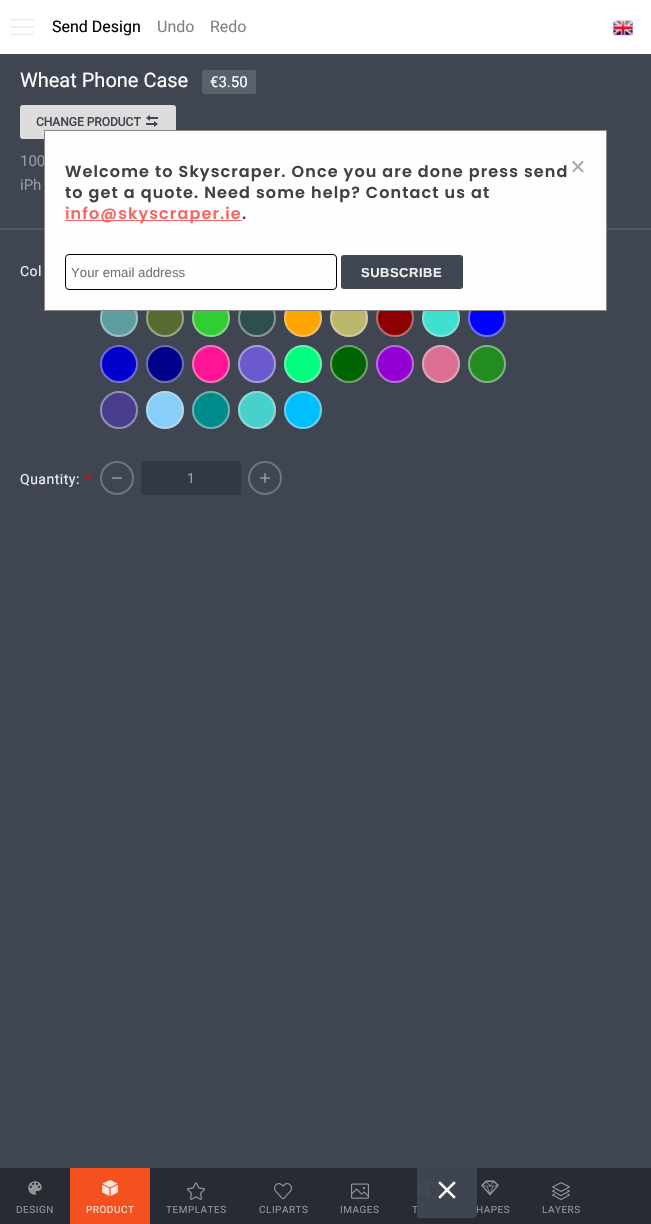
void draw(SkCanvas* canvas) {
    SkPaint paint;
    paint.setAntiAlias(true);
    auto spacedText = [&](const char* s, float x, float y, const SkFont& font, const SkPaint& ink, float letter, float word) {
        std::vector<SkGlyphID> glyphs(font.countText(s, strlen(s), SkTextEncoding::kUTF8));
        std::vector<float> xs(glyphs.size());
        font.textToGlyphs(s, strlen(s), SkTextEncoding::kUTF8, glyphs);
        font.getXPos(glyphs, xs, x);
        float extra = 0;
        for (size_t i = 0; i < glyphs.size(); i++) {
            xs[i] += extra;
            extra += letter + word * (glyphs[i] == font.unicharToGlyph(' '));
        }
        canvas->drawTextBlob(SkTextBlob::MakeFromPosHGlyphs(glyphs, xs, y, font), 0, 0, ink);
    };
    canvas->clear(0xFFFFFFFF);
    canvas->drawImageRect(SkImages::DeferredFromEncodedData(SkData::MakeFromFileName("img1.png")), SkRect::MakeXYWH(10, 18, 24, 18), SkSamplingOptions());
    SkFont font1(fontMgr->matchFamilyStyle("Roboto", SkFontStyle::Normal()), 16);
    font1.setSubpixel(true);
    paint.setColor(0xFF000000);
    canvas->drawString("Send Design", 52, 32, font1, paint);
    paint.setColor(0xFF808080);
    canvas->drawString("Undo", 157, 32, font1, paint);
    canvas->drawString("Redo", 210, 32, font1, paint);
    canvas->drawImageRect(SkImages::DeferredFromEncodedData(SkData::MakeFromFileName("img2.png")), SkRect::MakeXYWH(613, 20, 20, 16), SkSamplingOptions());
    paint.setColor(0xFF3F4652);
    canvas->drawRect(SkRect::MakeXYWH(0, 54, 651, 1114), paint);
    SkFont font2(fontMgr->matchFamilyStyle("Roboto", SkFontStyle::Normal()), 20);
    font2.setSubpixel(true);
    paint.setColor(0xFFFFFFFF);
    canvas->drawString("Wheat Phone Case", 20, 87, font2, paint);
    paint.setColor(0xFF59616D);
    canvas->drawRoundRect(SkRect::MakeXYWH(202, 70, 54, 24), 2, 2, paint);
    SkFont font3(fontMgr->matchFamilyStyle("Roboto", SkFontStyle::Normal()), 15);
    font3.setSubpixel(true);
    paint.setColor(0xFFFFFFFF);
    canvas->drawString("€3.50", 210, 87, font3, paint);
    paint.setColor(0xFFDDDDDD);
    canvas->drawRoundRect(SkRect::MakeXYWH(20, 105, 156, 34), 3, 3, paint);
    SkFont font4(fontMgr->matchFamilyStyle("Roboto", SkFontStyle::Bold()), 12);
    font4.setSubpixel(true);
    paint.setColor(0xFF3F4652);
    canvas->drawString("CHANGE PRODUCT", 36, 126, font4, paint);
    canvas->drawImageRect(SkImages::DeferredFromEncodedData(SkData::MakeFromFileName("img3.png")), SkRect::MakeXYWH(146, 115, 12, 12), SkSamplingOptions());
    paint.setColor(0xFF979AA0);
    canvas->drawString("100", 20, 166, font3, paint);
    canvas->drawString("iPh", 20, 190, font3, paint);
    paint.setColor(0xFF515965);
    canvas->drawRect(SkRect::MakeXYWH(0, 228, 651, 2), paint);
    SkFont font5(fontMgr->matchFamilyStyle("Roboto", SkFontStyle::Normal()), 14);
    font5.setSubpixel(true);
    paint.setColor(0xFFEEEEEE);
    spacedText("Col", 20, 276, font5, paint, 0.5f, 0);
    paint.setColor(0xFF5F9EA0);
    canvas->drawCircle(119, 318, 19, paint);
    paint.setStyle(SkPaint::kStroke_Style);
    paint.setStrokeWidth(2);
    paint.setColor(0x80DDDDDD);
    canvas->drawCircle(119, 318, 18, paint);
    paint.setStyle(SkPaint::kFill_Style);
    paint.setColor(0xFF556B2F);
    canvas->drawCircle(165, 318, 19, paint);
    paint.setStyle(SkPaint::kStroke_Style);
    paint.setColor(0x80DDDDDD);
    canvas->drawCircle(165, 318, 18, paint);
    paint.setStyle(SkPaint::kFill_Style);
    paint.setColor(0xFF32CD32);
    canvas->drawCircle(211, 318, 19, paint);
    paint.setStyle(SkPaint::kStroke_Style);
    paint.setColor(0x80DDDDDD);
    canvas->drawCircle(211, 318, 18, paint);
    paint.setStyle(SkPaint::kFill_Style);
    paint.setColor(0xFF2F4F4F);
    canvas->drawCircle(257, 318, 19, paint);
    paint.setStyle(SkPaint::kStroke_Style);
    paint.setColor(0x80DDDDDD);
    canvas->drawCircle(257, 318, 18, paint);
    paint.setStyle(SkPaint::kFill_Style);
    paint.setColor(0xFFFFA500);
    canvas->drawCircle(303, 318, 19, paint);
    paint.setStyle(SkPaint::kStroke_Style);
    paint.setColor(0x80DDDDDD);
    canvas->drawCircle(303, 318, 18, paint);
    paint.setStyle(SkPaint::kFill_Style);
    paint.setColor(0xFFBDB76B);
    canvas->drawCircle(349, 318, 19, paint);
    paint.setStyle(SkPaint::kStroke_Style);
    paint.setColor(0x80DDDDDD);
    canvas->drawCircle(349, 318, 18, paint);
    paint.setStyle(SkPaint::kFill_Style);
    paint.setColor(0xFF8B0000);
    canvas->drawCircle(395, 318, 19, paint);
    paint.setStyle(SkPaint::kStroke_Style);
    paint.setColor(0x80DDDDDD);
    canvas->drawCircle(395, 318, 18, paint);
    paint.setStyle(SkPaint::kFill_Style);
    paint.setColor(0xFF40E0D0);
    canvas->drawCircle(441, 318, 19, paint);
    paint.setStyle(SkPaint::kStroke_Style);
    paint.setColor(0x80DDDDDD);
    canvas->drawCircle(441, 318, 18, paint);
    paint.setStyle(SkPaint::kFill_Style);
    paint.setColor(0xFF0000FF);
    canvas->drawCircle(487, 318, 19, paint);
    paint.setStyle(SkPaint::kStroke_Style);
    paint.setColor(0x80DDDDDD);
    canvas->drawCircle(487, 318, 18, paint);
    paint.setStyle(SkPaint::kFill_Style);
    paint.setColor(0xFF0000CD);
    canvas->drawCircle(119, 364, 19, paint);
    paint.setStyle(SkPaint::kStroke_Style);
    paint.setColor(0x80DDDDDD);
    canvas->drawCircle(119, 364, 18, paint);
    paint.setStyle(SkPaint::kFill_Style);
    paint.setColor(0xFF00008B);
    canvas->drawCircle(165, 364, 19, paint);
    paint.setStyle(SkPaint::kStroke_Style);
    paint.setColor(0x80DDDDDD);
    canvas->drawCircle(165, 364, 18, paint);
    paint.setStyle(SkPaint::kFill_Style);
    paint.setColor(0xFFFF1493);
    canvas->drawCircle(211, 364, 19, paint);
    paint.setStyle(SkPaint::kStroke_Style);
    paint.setColor(0x80DDDDDD);
    canvas->drawCircle(211, 364, 18, paint);
    paint.setStyle(SkPaint::kFill_Style);
    paint.setColor(0xFF6A5ACD);
    canvas->drawCircle(257, 364, 19, paint);
    paint.setStyle(SkPaint::kStroke_Style);
    paint.setColor(0x80DDDDDD);
    canvas->drawCircle(257, 364, 18, paint);
    paint.setStyle(SkPaint::kFill_Style);
    paint.setColor(0xFF00FF7F);
    canvas->drawCircle(303, 364, 19, paint);
    paint.setStyle(SkPaint::kStroke_Style);
    paint.setColor(0x80DDDDDD);
    canvas->drawCircle(303, 364, 18, paint);
    paint.setStyle(SkPaint::kFill_Style);
    paint.setColor(0xFF006400);
    canvas->drawCircle(349, 364, 19, paint);
    paint.setStyle(SkPaint::kStroke_Style);
    paint.setColor(0x80DDDDDD);
    canvas->drawCircle(349, 364, 18, paint);
    paint.setStyle(SkPaint::kFill_Style);
    paint.setColor(0xFF9400D3);
    canvas->drawCircle(395, 364, 19, paint);
    paint.setStyle(SkPaint::kStroke_Style);
    paint.setColor(0x80DDDDDD);
    canvas->drawCircle(395, 364, 18, paint);
    paint.setStyle(SkPaint::kFill_Style);
    paint.setColor(0xFFDB7093);
    canvas->drawCircle(441, 364, 19, paint);
    paint.setStyle(SkPaint::kStroke_Style);
    paint.setColor(0x80DDDDDD);
    canvas->drawCircle(441, 364, 18, paint);
    paint.setStyle(SkPaint::kFill_Style);
    paint.setColor(0xFF228B22);
    canvas->drawCircle(487, 364, 19, paint);
    paint.setStyle(SkPaint::kStroke_Style);
    paint.setColor(0x80DDDDDD);
    canvas->drawCircle(487, 364, 18, paint);
    paint.setStyle(SkPaint::kFill_Style);
    paint.setColor(0xFF483D8B);
    canvas->drawCircle(119, 410, 19, paint);
    paint.setStyle(SkPaint::kStroke_Style);
    paint.setColor(0x80DDDDDD);
    canvas->drawCircle(119, 410, 18, paint);
    paint.setStyle(SkPaint::kFill_Style);
    paint.setColor(0xFF87CEFA);
    canvas->drawCircle(165, 410, 19, paint);
    paint.setStyle(SkPaint::kStroke_Style);
    paint.setColor(0x80DDDDDD);
    canvas->drawCircle(165, 410, 18, paint);
    paint.setStyle(SkPaint::kFill_Style);
    paint.setColor(0xFF008B8B);
    canvas->drawCircle(211, 410, 19, paint);
    paint.setStyle(SkPaint::kStroke_Style);
    paint.setColor(0x80DDDDDD);
    canvas->drawCircle(211, 410, 18, paint);
    paint.setStyle(SkPaint::kFill_Style);
    paint.setColor(0xFF48D1CC);
    canvas->drawCircle(257, 410, 19, paint);
    paint.setStyle(SkPaint::kStroke_Style);
    paint.setColor(0x80DDDDDD);
    canvas->drawCircle(257, 410, 18, paint);
    paint.setStyle(SkPaint::kFill_Style);
    paint.setColor(0xFF00BFFF);
    canvas->drawCircle(303, 410, 19, paint);
    paint.setStyle(SkPaint::kStroke_Style);
    paint.setColor(0x80DDDDDD);
    canvas->drawCircle(303, 410, 18, paint);
    paint.setStyle(SkPaint::kFill_Style);
    paint.setColor(0xFFEEEEEE);
    spacedText("Quantity:", 20, 484, font5, paint, 0.5f, 0);
    SkFont font6(fontMgr->matchFamilyStyle("Roboto", SkFontStyle::Italic()), 14);
    font6.setSubpixel(true);
    paint.setColor(0xFFFF0000);
    spacedText("*", 84, 484, font6, paint, 0.5f, 0);
    paint.setStyle(SkPaint::kStroke_Style);
    paint.setColor(0xFF6F747D);
    canvas->drawCircle(117, 478, 16, paint);
    canvas->drawImageRect(SkImages::DeferredFromEncodedData(SkData::MakeFromFileName("img4.png")), SkRect::MakeXYWH(112, 477, 10, 2), SkSamplingOptions());
    paint.setStyle(SkPaint::kFill_Style);
    paint.setColor(0xFF323844);
    canvas->drawRoundRect(SkRect::MakeXYWH(141, 461, 100, 34), 2, 2, paint);
    paint.setColor(0xFF9DA1A7);
    canvas->drawString("1", 187, 483, font5, paint);
    paint.setStyle(SkPaint::kStroke_Style);
    paint.setColor(0xFF6F747D);
    canvas->drawCircle(265, 478, 16, paint);
    canvas->drawImageRect(SkImages::DeferredFromEncodedData(SkData::MakeFromFileName("img5.png")), SkRect::MakeXYWH(260, 473, 10, 10), SkSamplingOptions());
    paint.setStyle(SkPaint::kFill_Style);
    paint.setColor(0xFF272C33);
    canvas->drawRect(SkRect::MakeXYWH(597, 1168, 54, 56), paint);
    canvas->drawRect(SkRect::MakeXYWH(150, 1168, 447, 56), paint);
    canvas->drawImageRect(SkImages::DeferredFromEncodedData(SkData::MakeFromFileName("img12.png")), SkRect::MakeXYWH(418, 1179, 13, 18), SkSamplingOptions());
    SkFont font7(fontMgr->matchFamilyStyle("Roboto", SkFontStyle::Normal()), 10);
    font7.setSubpixel(true);
    paint.setColor(0xFF939699);
    spacedText("T", 412, 1213, font7, paint, 0.5f, 0);
    spacedText("HAPES", 476, 1213, font7, paint, 0.5f, 0);
    paint.setColor(0xF23F4652);
    canvas->drawPath(SkPathBuilder().moveTo(417, 1168).lineTo(477, 1168).lineTo(477, 1213).cubicTo(477, 1216, 475, 1218, 472, 1218).lineTo(417, 1218).close().detach(), paint);
    canvas->drawImageRect(SkImages::DeferredFromEncodedData(SkData::MakeFromFileName("img6.png")), SkRect::MakeXYWH(438, 1181, 18, 18), SkSamplingOptions());
    paint.setColor(0xFF272C33);
    canvas->drawRect(SkRect::MakeXYWH(0, 1168, 70, 56), paint);
    canvas->drawImageRect(SkImages::DeferredFromEncodedData(SkData::MakeFromFileName("img7.png")), SkRect::MakeXYWH(28, 1181, 14, 14), SkSamplingOptions());
    paint.setColor(0xFF939699);
    spacedText("DESIGN", 16, 1213, font7, paint, 0.5f, 0);
    paint.setColor(0xFFF4511E);
    canvas->drawRect(SkRect::MakeXYWH(70, 1168, 80, 56), paint);
    canvas->drawImageRect(SkImages::DeferredFromEncodedData(SkData::MakeFromFileName("img8.png")), SkRect::MakeXYWH(102, 1180, 16, 16), SkSamplingOptions());
    paint.setColor(0xFFFDE5DD);
    spacedText("PRODUCT", 86, 1213, font7, paint, 0.5f, 0);
    canvas->drawImageRect(SkImages::DeferredFromEncodedData(SkData::MakeFromFileName("img9.png")), SkRect::MakeXYWH(187, 1182, 18, 18), SkSamplingOptions());
    paint.setColor(0xFF939699);
    spacedText("TEMPLATES", 166, 1213, font7, paint, 0.5f, 0);
    canvas->drawImageRect(SkImages::DeferredFromEncodedData(SkData::MakeFromFileName("img10.png")), SkRect::MakeXYWH(274, 1183, 18, 17), SkSamplingOptions());
    spacedText("CLIPARTS", 259, 1213, font7, paint, 0.5f, 0);
    canvas->drawImageRect(SkImages::DeferredFromEncodedData(SkData::MakeFromFileName("img11.png")), SkRect::MakeXYWH(351, 1183, 18, 16), SkSamplingOptions());
    spacedText("IMAGES", 340, 1213, font7, paint, 0.5f, 0);
    canvas->drawImageRect(SkImages::DeferredFromEncodedData(SkData::MakeFromFileName("img13.png")), SkRect::MakeXYWH(481, 1180, 18, 16), SkSamplingOptions());
    canvas->drawImageRect(SkImages::DeferredFromEncodedData(SkData::MakeFromFileName("img14.png")), SkRect::MakeXYWH(552, 1182, 18, 19), SkSamplingOptions());
    spacedText("LAYERS", 542, 1213, font7, paint, 0.5f, 0);
    paint.setColor(0xFFFEFEFE);
    canvas->drawRect(SkRect::MakeXYWH(44.5f, 130.5f, 562, 180), paint);
    paint.setStyle(SkPaint::kStroke_Style);
    paint.setStrokeWidth(1);
    paint.setColor(0xFF888888);
    canvas->drawRect(SkRect::MakeXYWH(44.5f, 130.5f, 562, 180), paint);
    SkFont font8(fontMgr->matchFamilyStyle("Poppins", SkFontStyle(600, SkFontStyle::kNormal_Width, SkFontStyle::kUpright_Slant)), 16);
    font8.setSubpixel(true);
    paint.setStyle(SkPaint::kFill_Style);
    paint.setColor(0xFF3E4146);
    spacedText("Welcome to Skyscraper. Once you are done press send", 65, 177, font8, paint, 1.12f, 0);
    spacedText("to get a quote. Need some help? Contact us at", 65, 198, font8, paint, 1.12f, 0);
    paint.setColor(0xFFF66867);
    canvas->drawRect(SkRect::MakeXYWH(65, 220, 177, 1), paint);
    spacedText("info@skyscraper.ie", 65, 219, font8, paint, 1.12f, 0);
    paint.setColor(0xFF3E4146);
    spacedText(".", 242, 219, font8, paint, 1.12f, 0);
    paint.setStyle(SkPaint::kStroke_Style);
    paint.setColor(0xFF000000);
    canvas->drawRoundRect(SkRect::MakeXYWH(65.5f, 254.5f, 271, 35), 3.5f, 3.5f, paint);
    SkFont font9(fontMgr->matchFamilyStyle("Liberation Sans", SkFontStyle::Normal()), 13.25f);
    font9.setSubpixel(true);
    paint.setStyle(SkPaint::kFill_Style);
    paint.setColor(0xFF757575);
    canvas->drawString("Your email address", 71, 277, font9, paint);
    paint.setColor(0xFF3F4652);
    canvas->drawRoundRect(SkRect::MakeXYWH(341, 255, 122, 34), 3, 3, paint);
    SkFont font10(fontMgr->matchFamilyStyle("Liberation Sans", SkFontStyle::Bold()), 13);
    font10.setSubpixel(true);
    paint.setColor(0xFFEEEEEE);
    spacedText("SUBSCRIBE", 361, 277, font10, paint, 0.5f, 0);
    SkFont font11(fontMgr->matchFamilyStyle("Liberation Serif", SkFontStyle::Bold()), 28);
    font11.setSubpixel(true);
    paint.setColor(0xFFAAAAAA);
    canvas->drawString("×", 570, 176, font11, paint);
}
